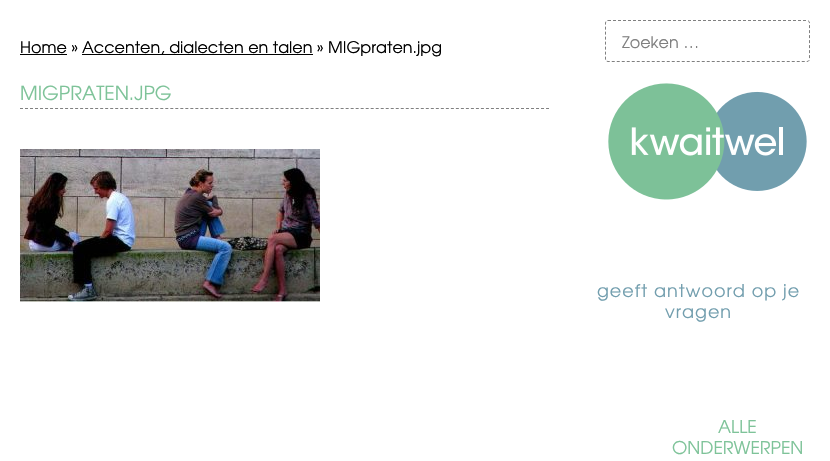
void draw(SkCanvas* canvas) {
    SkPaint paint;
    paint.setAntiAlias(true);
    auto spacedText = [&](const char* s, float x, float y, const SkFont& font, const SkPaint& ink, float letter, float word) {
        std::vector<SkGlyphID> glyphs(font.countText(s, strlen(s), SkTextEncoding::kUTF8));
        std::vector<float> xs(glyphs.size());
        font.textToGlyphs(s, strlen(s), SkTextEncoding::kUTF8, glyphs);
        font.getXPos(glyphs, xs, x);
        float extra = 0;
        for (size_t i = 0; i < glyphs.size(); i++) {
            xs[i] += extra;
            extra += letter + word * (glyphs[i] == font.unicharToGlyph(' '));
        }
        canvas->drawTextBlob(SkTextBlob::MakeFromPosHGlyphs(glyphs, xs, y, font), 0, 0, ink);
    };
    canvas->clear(0xFFFFFFFF);
    SkFont font1(fontMgr->matchFamilyStyle("TeX Gyre Adventor", SkFontStyle::Normal()), 16);
    font1.setSubpixel(true);
    paint.setColor(0xFF000000);
    canvas->drawString("Home »", 20, 53, font1, paint);
    canvas->drawRect(SkRect::MakeXYWH(20, 54, 47, 1), paint);
    canvas->drawRect(SkRect::MakeXYWH(82, 54, 231, 1), paint);
    canvas->drawString("Accenten, dialecten en talen » MIGpraten.jpg", 82, 53, font1, paint);
    paint.setStyle(SkPaint::kStroke_Style);
    paint.setStrokeWidth(1);
    paint.setColor(0xFF808080);
    paint.setPathEffect(SkDashPathEffect::Make({{3, 2.01f}}, 0));
    canvas->drawPath(SkPathBuilder().moveTo(20, 108.5f).lineTo(549, 108.5f).detach(), paint);
    paint.setPathEffect(nullptr);
    SkFont font2(fontMgr->matchFamilyStyle("TeX Gyre Adventor", SkFontStyle::Normal()), 19.25f);
    font2.setSubpixel(true);
    paint.setStyle(SkPaint::kFill_Style);
    paint.setColor(0xFF7EC399);
    canvas->drawString("MIGPRATEN.JPG", 20, 100, font2, paint);
    canvas->drawImageRect(SkImages::DeferredFromEncodedData(SkData::MakeFromFileName("img1.png")), SkRect::MakeXYWH(20, 149, 300, 153), SkSamplingOptions());
    paint.setStyle(SkPaint::kStroke_Style);
    paint.setColor(0xFF808080);
    paint.setPathEffect(SkDashPathEffect::Make({{3, 2}}, 0));
    canvas->drawPath(SkPathBuilder().moveTo(608, 20.5f).lineTo(807, 20.5f).cubicTo(808.5f, 20.5f, 809.5f, 21.5f, 809.5f, 23).lineTo(809.5f, 59).cubicTo(809.5f, 60.5f, 808.5f, 61.5f, 807, 61.5f).lineTo(608, 61.5f).cubicTo(606.5f, 61.5f, 605.5f, 60.5f, 605.5f, 59).lineTo(605.5f, 23).cubicTo(605.5f, 21.5f, 606.5f, 20.5f, 608, 20.5f).close().detach(), paint);
    paint.setPathEffect(nullptr);
    SkFont font3(fontMgr->matchFamilyStyle("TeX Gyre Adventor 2", SkFontStyle::Normal()), 16);
    font3.setSubpixel(true);
    paint.setStyle(SkPaint::kFill_Style);
    canvas->drawString("Zoeken …", 622, 48, font3, paint);
    canvas->drawImageRect(SkImages::DeferredFromEncodedData(SkData::MakeFromFileName("img2.png")), SkRect::MakeXYWH(608, 83, 199, 117), SkSamplingOptions());
    SkFont font4(fontMgr->matchFamilyStyle("TeX Gyre Adventor", SkFontStyle::Normal()), 17.6f);
    font4.setSubpixel(true);
    paint.setColor(0xFF729EAE);
    spacedText("geeft antwoord op je", 597, 297, font4, paint, 1, 0);
    spacedText("vragen", 665, 318, font4, paint, 1, 0);
    paint.setColor(0xFF7EC399);
    canvas->drawString("ALLE", 718, 433, font4, paint);
    canvas->drawString("ONDERWERPEN", 672, 454, font4, paint);
}
